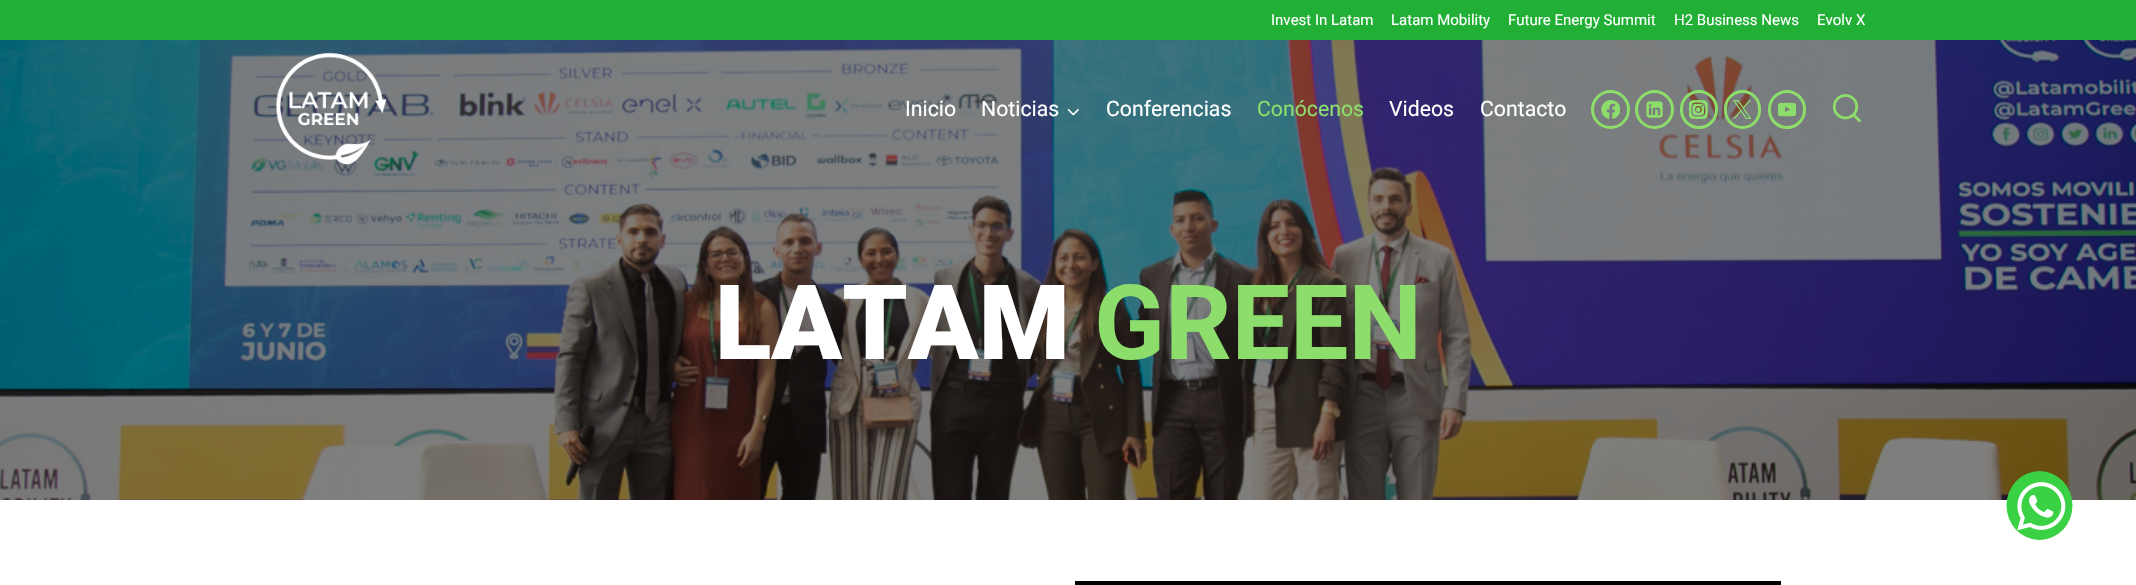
void draw(SkCanvas* canvas) {
    SkPaint paint;
    paint.setAntiAlias(true);
    canvas->clear(0xFFFFFFFF);
    paint.setColor(0xFF22AF36);
    canvas->drawRect(SkRect::MakeXYWH(0, 0, 2136, 40), paint);
    SkFont font1(fontMgr->matchFamilyStyle("Roboto", SkFontStyle::Normal()), 15);
    font1.setSubpixel(true);
    paint.setColor(0xFFFFFFFF);
    canvas->drawString("Invest In Latam", 1271, 25, font1, paint);
    canvas->drawString("Latam Mobility", 1391, 25, font1, paint);
    canvas->drawString("Future Energy Summit", 1508, 25, font1, paint);
    canvas->drawString("H2 Business News", 1674, 25, font1, paint);
    canvas->drawString("Evolv X", 1817, 25, font1, paint);
    canvas->drawImageRect(SkImages::DeferredFromEncodedData(SkData::MakeFromFileName("img9.png")), SkRect::MakeXYWH(0, 40, 2136, 460), SkSamplingOptions());
    canvas->drawImageRect(SkImages::DeferredFromEncodedData(SkData::MakeFromFileName("img1.png")), SkRect::MakeXYWH(275, 52, 112, 113), SkSamplingOptions());
    SkFont font2(fontMgr->matchFamilyStyle("Roboto", SkFontStyle::Normal()), 21.25f);
    font2.setSubpixel(true);
    canvas->drawString("Inicio", 905, 116, font2, paint);
    canvas->drawString("Noticias", 981, 116, font2, paint);
    canvas->drawImageRect(SkImages::DeferredFromEncodedData(SkData::MakeFromFileName("img2.png")), SkRect::MakeXYWH(1067, 109, 12, 7), SkSamplingOptions());
    canvas->drawString("Conferencias", 1106, 116, font2, paint);
    paint.setColor(0xFF8DDD6D);
    canvas->drawString("Conócenos", 1257, 116, font2, paint);
    paint.setColor(0xFFFFFFFF);
    canvas->drawString("Videos", 1389, 116, font2, paint);
    canvas->drawString("Contacto", 1480, 116, font2, paint);
    paint.setStyle(SkPaint::kStroke_Style);
    paint.setStrokeWidth(3);
    paint.setColor(0xFF8DDD6A);
    canvas->drawCircle(1610.5f, 109.5f, 18, paint);
    canvas->drawImageRect(SkImages::DeferredFromEncodedData(SkData::MakeFromFileName("img3.png")), SkRect::MakeXYWH(1601, 100, 19, 19), SkSamplingOptions());
    canvas->drawCircle(1654.5f, 109.5f, 18, paint);
    canvas->drawImageRect(SkImages::DeferredFromEncodedData(SkData::MakeFromFileName("img4.png")), SkRect::MakeXYWH(1646, 101, 17, 17), SkSamplingOptions());
    canvas->drawRoundRect(SkRect::MakeXYWH(1681.5f, 91.5f, 35, 36), 17.5f, 17.5f, paint);
    canvas->drawImageRect(SkImages::DeferredFromEncodedData(SkData::MakeFromFileName("img5.png")), SkRect::MakeXYWH(1689, 100, 19, 19), SkSamplingOptions());
    canvas->drawRoundRect(SkRect::MakeXYWH(1725.5f, 91.5f, 34, 36), 17, 17, paint);
    canvas->drawImageRect(SkImages::DeferredFromEncodedData(SkData::MakeFromFileName("img6.png")), SkRect::MakeXYWH(1733, 100, 19, 19), SkSamplingOptions());
    canvas->drawRoundRect(SkRect::MakeXYWH(1769.5f, 91.5f, 35, 36), 17.5f, 17.5f, paint);
    canvas->drawImageRect(SkImages::DeferredFromEncodedData(SkData::MakeFromFileName("img7.png")), SkRect::MakeXYWH(1778, 102, 18, 15), SkSamplingOptions());
    canvas->drawImageRect(SkImages::DeferredFromEncodedData(SkData::MakeFromFileName("img8.png")), SkRect::MakeXYWH(1832, 94, 29, 29), SkSamplingOptions());
    SkFont font3(fontMgr->matchFamilyStyle("Roboto", SkFontStyle(900, SkFontStyle::kNormal_Width, SkFontStyle::kUpright_Slant)), 104);
    font3.setSubpixel(true);
    paint.setStyle(SkPaint::kFill_Style);
    paint.setColor(0xFFFFFFFF);
    canvas->drawString("LATAM", 715, 359, font3, paint);
    SkFont font4(fontMgr->matchFamilyStyle("Roboto", SkFontStyle::Bold()), 104);
    font4.setSubpixel(true);
    paint.setColor(0xFF8DDD6D);
    canvas->drawString("GREEN", 1094, 359, font4, paint);
    paint.setColor(0xFF3AD145);
    canvas->drawOval(SkRect::MakeXYWH(2006.5f, 471, 66, 69), paint);
    canvas->drawImageRect(SkImages::DeferredFromEncodedData(SkData::MakeFromFileName("img10.png")), SkRect::MakeXYWH(2017, 482, 49, 49), SkSamplingOptions());
    paint.setColor(0xFF000000);
    canvas->drawRect(SkRect::MakeXYWH(1075, 581, 706, 4), paint);
}
